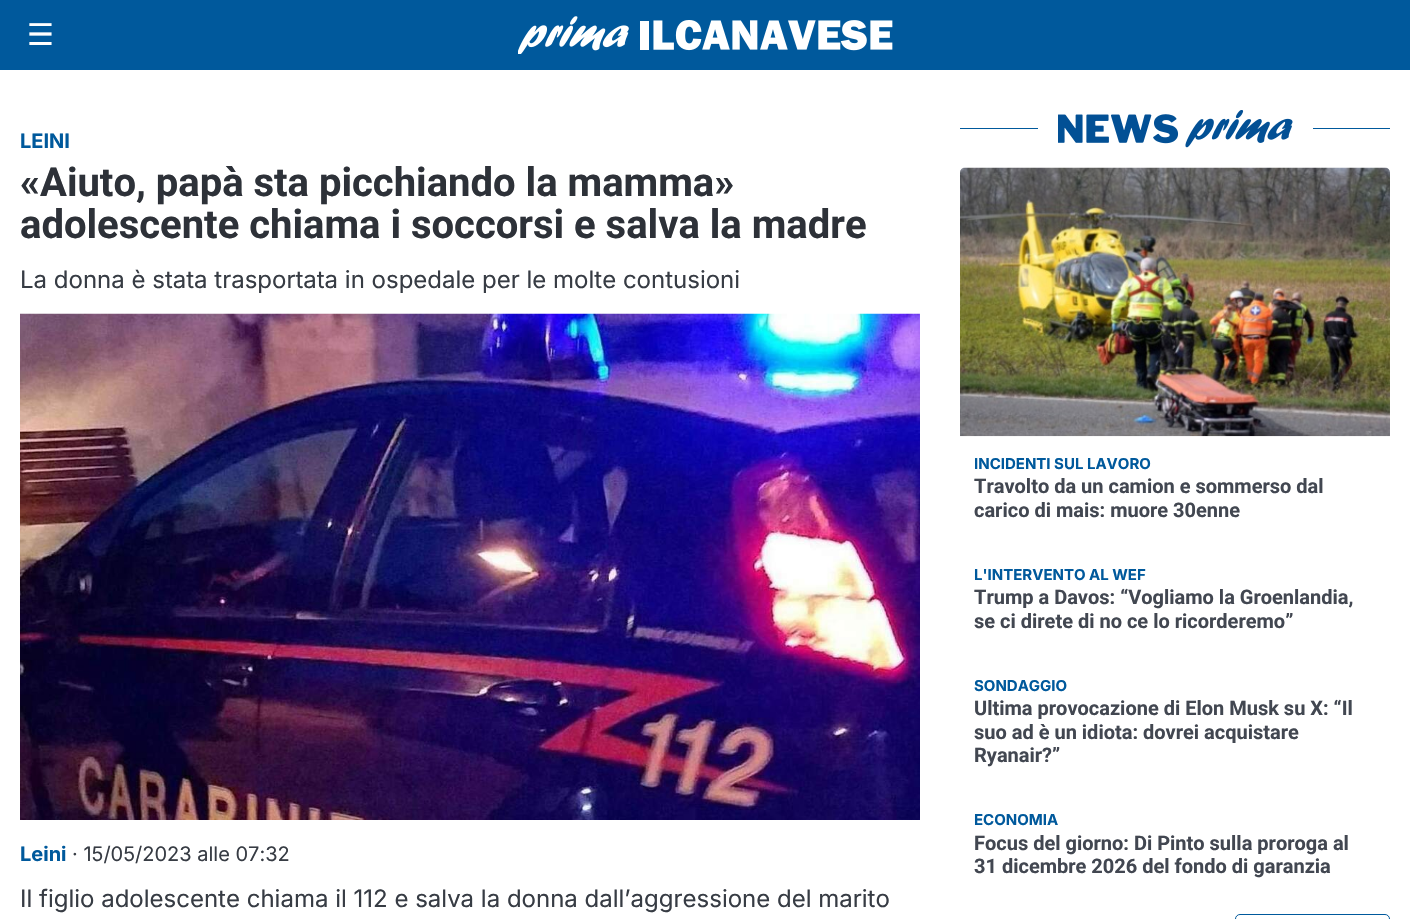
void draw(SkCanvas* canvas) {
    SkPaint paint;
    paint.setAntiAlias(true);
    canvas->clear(0xFFFFFFFF);
    paint.setColor(0xFF00599C);
    canvas->drawRect(SkRect::MakeXYWH(0, 0, 1410, 70), paint);
    SkFont font1(fontMgr->matchFamilyStyle("DejaVu Sans", SkFontStyle::Normal()), 30);
    font1.setSubpixel(true);
    paint.setColor(0xFFFFFFFF);
    canvas->drawString("☰", 27, 45, font1, paint);
    canvas->drawImageRect(SkImages::DeferredFromEncodedData(SkData::MakeFromFileName("img1.png")), SkRect::MakeXYWH(518, 16, 375, 38), SkSamplingOptions());
    SkFont font2(fontMgr->matchFamilyStyle("Inter", SkFontStyle::Bold()), 20);
    font2.setSubpixel(true);
    paint.setColor(0xFF00599C);
    canvas->drawString("LEINI", 20, 148, font2, paint);
    SkFont font3(fontMgr->matchFamilyStyle("Roboto", SkFontStyle::Bold()), 40);
    font3.setSubpixel(true);
    paint.setColor(0xFF2D3138);
    canvas->drawString("«Aiuto, papà sta picchiando la mamma»", 20, 196, font3, paint);
    canvas->drawString("adolescente chiama i soccorsi e salva la madre", 20, 238, font3, paint);
    SkFont font4(fontMgr->matchFamilyStyle("Inter", SkFontStyle::Normal()), 24);
    font4.setSubpixel(true);
    paint.setColor(0xFF373C44);
    canvas->drawString("La donna è stata trasportata in ospedale per le molte contusioni", 20, 288, font4, paint);
    canvas->drawImageRect(SkImages::DeferredFromEncodedData(SkData::MakeFromFileName("img2.png")), SkRect::MakeXYWH(20, 313, 900, 507), SkSamplingOptions());
    paint.setColor(0xFF00599C);
    canvas->drawString("Leini", 20, 861, font2, paint);
    SkFont font5(fontMgr->matchFamilyStyle("Inter", SkFontStyle::Normal()), 20);
    font5.setSubpixel(true);
    paint.setColor(0xFF373C44);
    canvas->drawString("· 15/05/2023 alle 07:32", 72, 861, font5, paint);
    canvas->drawString("Il figlio adolescente chiama il 112 e salva la donna dall’aggressione del marito", 20, 907, font4, paint);
    paint.setColor(0xFF00599C);
    canvas->drawRect(SkRect::MakeXYWH(960, 128, 430, 1), paint);
    paint.setColor(0xFFFFFFFF);
    canvas->drawRect(SkRect::MakeXYWH(1038, 128, 275, 1), paint);
    canvas->drawImageRect(SkImages::DeferredFromEncodedData(SkData::MakeFromFileName("img3.png")), SkRect::MakeXYWH(1058, 110, 235, 38), SkSamplingOptions());
    canvas->drawImageRect(SkImages::DeferredFromEncodedData(SkData::MakeFromFileName("img4.png")), SkRect::MakeXYWH(960, 167, 430, 270), SkSamplingOptions());
    SkFont font6(fontMgr->matchFamilyStyle("Inter", SkFontStyle::Bold()), 15);
    font6.setSubpixel(true);
    paint.setColor(0xFF00599C);
    canvas->drawString("INCIDENTI SUL LAVORO", 974, 469, font6, paint);
    SkFont font7(fontMgr->matchFamilyStyle("Roboto", SkFontStyle::Bold()), 20);
    font7.setSubpixel(true);
    paint.setColor(0xFF424751);
    canvas->drawString("Travolto da un camion e sommerso dal", 974, 493, font7, paint);
    canvas->drawString("carico di mais: muore 30enne", 974, 517, font7, paint);
    paint.setColor(0xFF00599C);
    canvas->drawString("L'INTERVENTO AL WEF", 974, 580, font6, paint);
    paint.setColor(0xFF424751);
    canvas->drawString("Trump a Davos: “Vogliamo la Groenlandia,", 974, 604, font7, paint);
    canvas->drawString("se ci direte di no ce lo ricorderemo”", 974, 628, font7, paint);
    paint.setColor(0xFF00599C);
    canvas->drawString("SONDAGGIO", 974, 691, font6, paint);
    paint.setColor(0xFF424751);
    canvas->drawString("Ultima provocazione di Elon Musk su X: “Il", 974, 715, font7, paint);
    canvas->drawString("suo ad è un idiota: dovrei acquistare", 974, 739, font7, paint);
    canvas->drawString("Ryanair?”", 974, 762, font7, paint);
    paint.setColor(0xFF00599C);
    canvas->drawString("ECONOMIA", 974, 825, font6, paint);
    paint.setColor(0xFF424751);
    canvas->drawString("Focus del giorno: Di Pinto sulla proroga al", 974, 850, font7, paint);
    canvas->drawString("31 dicembre 2026 del fondo di garanzia", 974, 873, font7, paint);
    paint.setStyle(SkPaint::kStroke_Style);
    paint.setStrokeWidth(1);
    paint.setColor(0xFF00599C);
    canvas->drawRoundRect(SkRect::MakeXYWH(1235.5f, 914.5f, 154, 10), 4.5f, 4.5f, paint);
}
